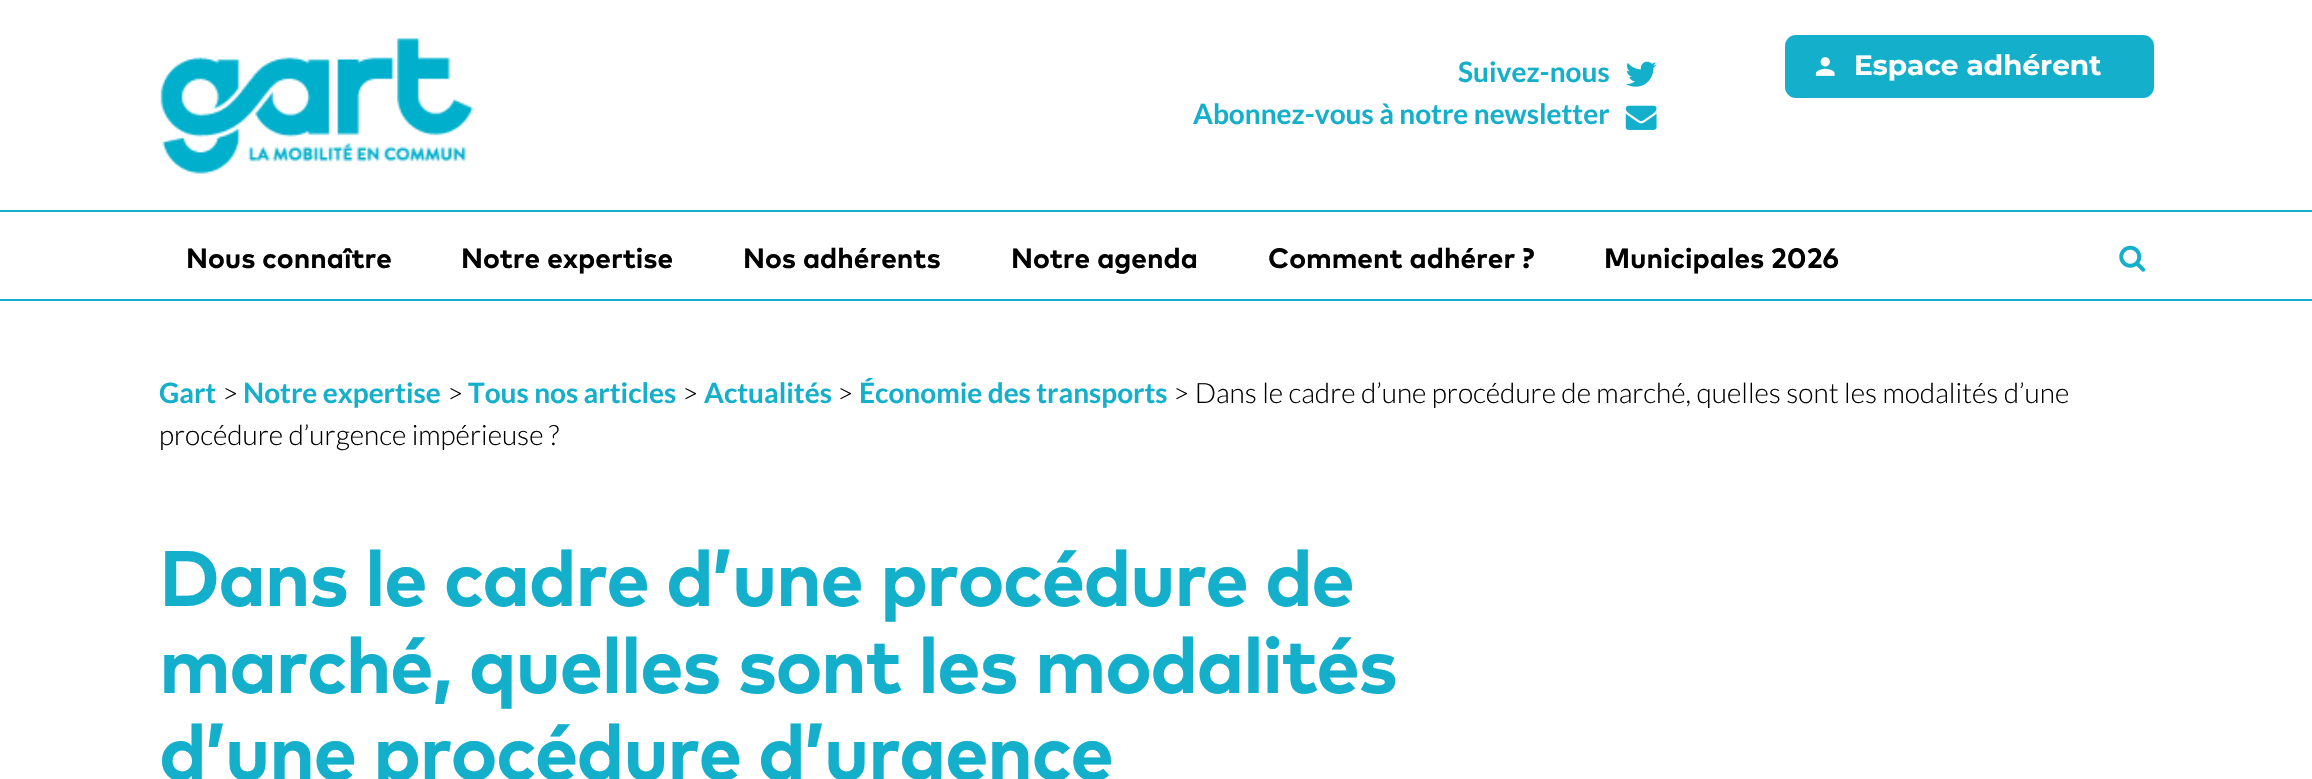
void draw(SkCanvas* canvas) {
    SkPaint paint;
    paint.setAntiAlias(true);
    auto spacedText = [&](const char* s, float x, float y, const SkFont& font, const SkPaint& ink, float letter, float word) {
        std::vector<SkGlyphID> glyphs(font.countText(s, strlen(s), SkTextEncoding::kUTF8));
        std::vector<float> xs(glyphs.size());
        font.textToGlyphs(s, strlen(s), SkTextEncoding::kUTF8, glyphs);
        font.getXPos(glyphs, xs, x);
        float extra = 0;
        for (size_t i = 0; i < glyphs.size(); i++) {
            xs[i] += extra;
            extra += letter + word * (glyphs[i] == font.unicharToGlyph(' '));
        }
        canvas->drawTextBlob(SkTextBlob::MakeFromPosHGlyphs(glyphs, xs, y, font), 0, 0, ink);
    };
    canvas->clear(0xFFFFFFFF);
    paint.setColor(0xFF13AFCB);
    canvas->drawRect(SkRect::MakeXYWH(0, 210, 2312, 2), paint);
    canvas->drawImageRect(SkImages::DeferredFromEncodedData(SkData::MakeFromFileName("img1.png")), SkRect::MakeXYWH(160, 38, 313, 136), SkSamplingOptions());
    SkFont font1(fontMgr->matchFamilyStyle("Lato", SkFontStyle::Bold()), 28);
    font1.setSubpixel(true);
    canvas->drawString("Suivez-nous", 1458, 82, font1, paint);
    canvas->drawImageRect(SkImages::DeferredFromEncodedData(SkData::MakeFromFileName("img2.png")), SkRect::MakeXYWH(1625, 61, 32, 26), SkSamplingOptions());
    canvas->drawString("Abonnez-vous à notre newsletter", 1193, 124, font1, paint);
    canvas->drawImageRect(SkImages::DeferredFromEncodedData(SkData::MakeFromFileName("img3.png")), SkRect::MakeXYWH(1625, 105, 32, 25), SkSamplingOptions());
    canvas->drawRoundRect(SkRect::MakeXYWH(1785, 35, 369, 63), 11, 11, paint);
    canvas->drawImageRect(SkImages::DeferredFromEncodedData(SkData::MakeFromFileName("img4.png")), SkRect::MakeXYWH(1815, 57, 20, 19), SkSamplingOptions());
    SkFont font2(fontMgr->matchFamilyStyle("Montserrat", SkFontStyle::Bold()), 28);
    font2.setSubpixel(true);
    paint.setColor(0xFFFFFFFF);
    canvas->drawString("Espace adhérent", 1854, 75, font2, paint);
    paint.setColor(0xFF13AFCB);
    canvas->drawRect(SkRect::MakeXYWH(0, 299, 2312, 2), paint);
    SkFont font3(fontMgr->matchFamilyStyle("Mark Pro", SkFontStyle::Bold()), 28);
    font3.setSubpixel(true);
    paint.setColor(0xFF000000);
    canvas->drawString("Nous connaître", 186, 268, font3, paint);
    canvas->drawString("Notre expertise", 461, 268, font3, paint);
    canvas->drawString("Nos adhérents", 743, 268, font3, paint);
    canvas->drawString("Notre agenda", 1011, 268, font3, paint);
    canvas->drawString("Comment adhérer ?", 1268, 268, font3, paint);
    canvas->drawString("Municipales 2026", 1604, 268, font3, paint);
    canvas->drawImageRect(SkImages::DeferredFromEncodedData(SkData::MakeFromFileName("img5.png")), SkRect::MakeXYWH(2119, 245, 27, 27), SkSamplingOptions());
    paint.setColor(0xFF13AFCB);
    canvas->drawString("Gart", 159, 403, font1, paint);
    SkFont font4(fontMgr->matchFamilyStyle("Lato", SkFontStyle(300, SkFontStyle::kNormal_Width, SkFontStyle::kUpright_Slant)), 28);
    font4.setSubpixel(true);
    paint.setColor(0xFF000000);
    canvas->drawString(">", 222, 403, font4, paint);
    paint.setColor(0xFF13AFCB);
    canvas->drawString("Notre expertise", 243, 403, font1, paint);
    paint.setColor(0xFF000000);
    canvas->drawString(">", 447, 403, font4, paint);
    paint.setColor(0xFF13AFCB);
    canvas->drawString("Tous nos articles", 468, 403, font1, paint);
    paint.setColor(0xFF000000);
    canvas->drawString(">", 682, 403, font4, paint);
    paint.setColor(0xFF13AFCB);
    canvas->drawString("Actualités", 704, 403, font1, paint);
    paint.setColor(0xFF000000);
    canvas->drawString(">", 837, 403, font4, paint);
    paint.setColor(0xFF13AFCB);
    canvas->drawString("Économie des transports", 859, 403, font1, paint);
    paint.setColor(0xFF000000);
    canvas->drawString("> Dans le cadre d’une procédure de marché, quelles sont les modalités d’une", 1173, 403, font4, paint);
    canvas->drawString("procédure d’urgence impérieuse ?", 159, 445, font4, paint);
    SkFont font5(fontMgr->matchFamilyStyle("Mark Pro", SkFontStyle::Bold()), 78.4f);
    font5.setSubpixel(true);
    paint.setColor(0xFF13AFCB);
    spacedText("Dans le cadre d’une procédure de", 159, 606, font5, paint, -1.75f, 0);
    spacedText("marché, quelles sont les modalités", 159, 693, font5, paint, -1.75f, 0);
    spacedText("d’une procédure d’urgence", 159, 780, font5, paint, -1.75f, 0);
}
